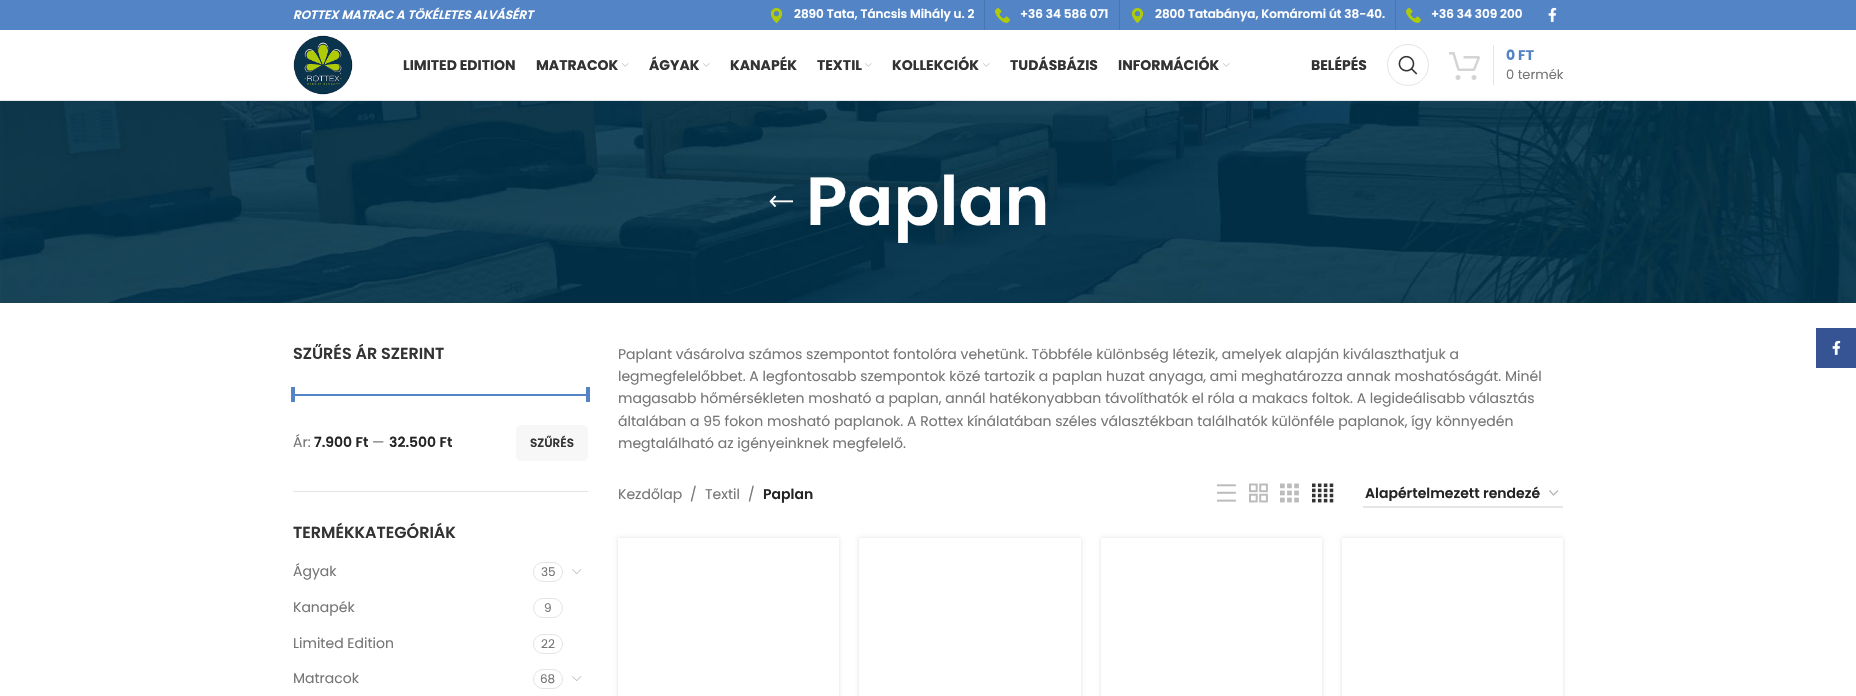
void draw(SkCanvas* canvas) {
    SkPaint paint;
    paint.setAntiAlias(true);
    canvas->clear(0xFFFFFFFF);
    paint.setColor(0xFF5384C5);
    canvas->drawRect(SkRect::MakeXYWH(0, 0, 1856, 30), paint);
    SkFont font1(fontMgr->matchFamilyStyle("Poppins", SkFontStyle(600, SkFontStyle::kNormal_Width, SkFontStyle::kItalic_Slant)), 12);
    font1.setSubpixel(true);
    paint.setColor(0xFFFFFFFF);
    canvas->drawString("ROTTEX MATRAC A TÖKÉLETES ALVÁSÉRT", 293, 19, font1, paint);
    canvas->drawImageRect(SkImages::DeferredFromEncodedData(SkData::MakeFromFileName("img1.png")), SkRect::MakeXYWH(770, 8, 13, 15), SkSamplingOptions());
    SkFont font2(fontMgr->matchFamilyStyle("Poppins", SkFontStyle(600, SkFontStyle::kNormal_Width, SkFontStyle::kUpright_Slant)), 12);
    font2.setSubpixel(true);
    canvas->drawString("2890 Tata, Táncsis Mihály u. 2", 794, 18, font2, paint);
    paint.setColor(0xFF4A76B0);
    canvas->drawRect(SkRect::MakeXYWH(984, 0, 1, 30), paint);
    canvas->drawImageRect(SkImages::DeferredFromEncodedData(SkData::MakeFromFileName("img2.png")), SkRect::MakeXYWH(995, 8, 15, 15), SkSamplingOptions());
    paint.setColor(0xFFFFFFFF);
    canvas->drawString("+36 34 586 071", 1020, 18, font2, paint);
    paint.setColor(0xFF4A76B0);
    canvas->drawRect(SkRect::MakeXYWH(1119, 0, 1, 30), paint);
    canvas->drawImageRect(SkImages::DeferredFromEncodedData(SkData::MakeFromFileName("img1.png")), SkRect::MakeXYWH(1131, 8, 13, 15), SkSamplingOptions());
    paint.setColor(0xFFFFFFFF);
    canvas->drawString("2800 Tatabánya, Komáromi út 38-40.", 1155, 18, font2, paint);
    paint.setColor(0xFF4A76B0);
    canvas->drawRect(SkRect::MakeXYWH(1395, 0, 1, 30), paint);
    canvas->drawImageRect(SkImages::DeferredFromEncodedData(SkData::MakeFromFileName("img2.png")), SkRect::MakeXYWH(1406, 8, 15, 15), SkSamplingOptions());
    paint.setColor(0xFFFFFFFF);
    canvas->drawString("+36 34 309 200", 1431, 18, font2, paint);
    canvas->drawImageRect(SkImages::DeferredFromEncodedData(SkData::MakeFromFileName("img3.png")), SkRect::MakeXYWH(1548, 7, 9, 15), SkSamplingOptions());
    paint.setColor(0xFFE6E6E6);
    canvas->drawRect(SkRect::MakeXYWH(0, 100, 1856, 1), paint);
    canvas->drawImageRect(SkImages::DeferredFromEncodedData(SkData::MakeFromFileName("img4.png")), SkRect::MakeXYWH(293, 35, 60, 60), SkSamplingOptions());
    SkFont font3(fontMgr->matchFamilyStyle("Poppins", SkFontStyle::Bold()), 14);
    font3.setSubpixel(true);
    paint.setColor(0xFF333333);
    canvas->drawString("LIMITED EDITION", 403, 70, font3, paint);
    canvas->drawString("MATRACOK", 536, 70, font3, paint);
    canvas->drawImageRect(SkImages::DeferredFromEncodedData(SkData::MakeFromFileName("img5.png")), SkRect::MakeXYWH(622, 63, 7, 4), SkSamplingOptions());
    canvas->drawString("ÁGYAK", 649, 70, font3, paint);
    canvas->drawImageRect(SkImages::DeferredFromEncodedData(SkData::MakeFromFileName("img5.png")), SkRect::MakeXYWH(703, 63, 7, 4), SkSamplingOptions());
    canvas->drawString("KANAPÉK", 730, 70, font3, paint);
    canvas->drawString("TEXTIL", 817, 70, font3, paint);
    canvas->drawImageRect(SkImages::DeferredFromEncodedData(SkData::MakeFromFileName("img5.png")), SkRect::MakeXYWH(865, 63, 7, 4), SkSamplingOptions());
    canvas->drawString("KOLLEKCIÓK", 892, 70, font3, paint);
    canvas->drawImageRect(SkImages::DeferredFromEncodedData(SkData::MakeFromFileName("img5.png")), SkRect::MakeXYWH(983, 63, 7, 4), SkSamplingOptions());
    canvas->drawString("TUDÁSBÁZIS", 1010, 70, font3, paint);
    canvas->drawString("INFORMÁCIÓK", 1118, 70, font3, paint);
    canvas->drawImageRect(SkImages::DeferredFromEncodedData(SkData::MakeFromFileName("img5.png")), SkRect::MakeXYWH(1223, 63, 7, 4), SkSamplingOptions());
    canvas->drawString("BELÉPÉS", 1311, 70, font3, paint);
    paint.setStyle(SkPaint::kStroke_Style);
    paint.setStrokeWidth(1);
    paint.setColor(0xFFE4E4E4);
    canvas->drawCircle(1408, 65, 20.5f, paint);
    canvas->drawImageRect(SkImages::DeferredFromEncodedData(SkData::MakeFromFileName("img6.png")), SkRect::MakeXYWH(1398, 55, 20, 20), SkSamplingOptions());
    canvas->drawImageRect(SkImages::DeferredFromEncodedData(SkData::MakeFromFileName("img7.png")), SkRect::MakeXYWH(1449, 52, 31, 28), SkSamplingOptions());
    paint.setStyle(SkPaint::kFill_Style);
    paint.setColor(0xFFE6E6E6);
    canvas->drawRect(SkRect::MakeXYWH(1493, 45, 1, 40), paint);
    paint.setColor(0xFF5384C5);
    canvas->drawString("0 FT", 1506, 60, font3, paint);
    SkFont font4(fontMgr->matchFamilyStyle("Poppins", SkFontStyle::Normal()), 13);
    font4.setSubpixel(true);
    paint.setColor(0xFF767676);
    canvas->drawString("0 termék", 1506, 79, font4, paint);
    canvas->drawImageRect(SkImages::DeferredFromEncodedData(SkData::MakeFromFileName("img8.png")), SkRect::MakeXYWH(0, 101, 1856, 202), SkSamplingOptions());
    canvas->drawImageRect(SkImages::DeferredFromEncodedData(SkData::MakeFromFileName("img9.png")), SkRect::MakeXYWH(769, 195, 24, 13), SkSamplingOptions());
    SkFont font5(fontMgr->matchFamilyStyle("Poppins", SkFontStyle(600, SkFontStyle::kNormal_Width, SkFontStyle::kUpright_Slant)), 68);
    font5.setSubpixel(true);
    paint.setColor(0xFFFFFFFF);
    canvas->drawString("Paplan", 806, 225, font5, paint);
    paint.setColor(0xFFE4E4E4);
    canvas->drawRect(SkRect::MakeXYWH(293, 491, 295, 1), paint);
    SkFont font6(fontMgr->matchFamilyStyle("Poppins", SkFontStyle(600, SkFontStyle::kNormal_Width, SkFontStyle::kUpright_Slant)), 16);
    font6.setSubpixel(true);
    paint.setColor(0xFF333333);
    canvas->drawString("SZŰRÉS ÁR SZERINT", 293, 359, font6, paint);
    paint.setColor(0xFF5384C5);
    canvas->drawRect(SkRect::MakeXYWH(293, 394, 295, 2), paint);
    canvas->drawRect(SkRect::MakeXYWH(291, 387, 4, 15), paint);
    canvas->drawRect(SkRect::MakeXYWH(586, 387, 4, 15), paint);
    SkFont font7(fontMgr->matchFamilyStyle("Poppins", SkFontStyle::Normal()), 14);
    font7.setSubpixel(true);
    paint.setColor(0xFF767676);
    canvas->drawString("Ár:", 293, 447, font7, paint);
    SkFont font8(fontMgr->matchFamilyStyle("Poppins", SkFontStyle(600, SkFontStyle::kNormal_Width, SkFontStyle::kUpright_Slant)), 14);
    font8.setSubpixel(true);
    paint.setColor(0xFF242424);
    canvas->drawString("7.900 Ft", 314, 447, font8, paint);
    paint.setColor(0xFF767676);
    canvas->drawString("—", 372, 447, font7, paint);
    paint.setColor(0xFF242424);
    canvas->drawString("32.500 Ft", 389, 447, font8, paint);
    paint.setColor(0xFFF7F7F7);
    canvas->drawRoundRect(SkRect::MakeXYWH(516, 425, 72, 36), 5, 5, paint);
    paint.setColor(0xFF333333);
    canvas->drawString("SZŰRÉS", 530, 447, font2, paint);
    canvas->drawString("TERMÉKKATEGÓRIÁK", 293, 538, font6, paint);
    paint.setColor(0xFF767676);
    canvas->drawString("Ágyak", 293, 576, font7, paint);
    paint.setStyle(SkPaint::kStroke_Style);
    paint.setColor(0xFFE4E4E4);
    canvas->drawRoundRect(SkRect::MakeXYWH(533.5f, 562.5f, 29, 19), 9.5f, 9.5f, paint);
    SkFont font9(fontMgr->matchFamilyStyle("Poppins", SkFontStyle::Normal()), 12);
    font9.setSubpixel(true);
    paint.setStyle(SkPaint::kFill_Style);
    paint.setColor(0xFF767676);
    canvas->drawString("35", 541, 576, font9, paint);
    canvas->drawImageRect(SkImages::DeferredFromEncodedData(SkData::MakeFromFileName("img10.png")), SkRect::MakeXYWH(572, 569, 10, 5), SkSamplingOptions());
    canvas->drawString("Kanapék", 293, 612, font7, paint);
    paint.setStyle(SkPaint::kStroke_Style);
    paint.setColor(0xFFE4E4E4);
    canvas->drawRoundRect(SkRect::MakeXYWH(533.5f, 598.5f, 29, 19), 9.5f, 9.5f, paint);
    paint.setStyle(SkPaint::kFill_Style);
    paint.setColor(0xFF767676);
    canvas->drawString("9", 544, 612, font9, paint);
    canvas->drawString("Limited Edition", 293, 648, font7, paint);
    paint.setStyle(SkPaint::kStroke_Style);
    paint.setColor(0xFFE4E4E4);
    canvas->drawRoundRect(SkRect::MakeXYWH(533.5f, 634.5f, 29, 19), 9.5f, 9.5f, paint);
    paint.setStyle(SkPaint::kFill_Style);
    paint.setColor(0xFF767676);
    canvas->drawString("22", 541, 648, font9, paint);
    canvas->drawString("Matracok", 293, 683, font7, paint);
    paint.setStyle(SkPaint::kStroke_Style);
    paint.setColor(0xFFE4E4E4);
    canvas->drawRoundRect(SkRect::MakeXYWH(533.5f, 669.5f, 29, 19), 9.5f, 9.5f, paint);
    paint.setStyle(SkPaint::kFill_Style);
    paint.setColor(0xFF767676);
    canvas->drawString("68", 540, 683, font9, paint);
    canvas->drawImageRect(SkImages::DeferredFromEncodedData(SkData::MakeFromFileName("img10.png")), SkRect::MakeXYWH(572, 676, 10, 5), SkSamplingOptions());
    canvas->drawString("Paplant vásárolva számos szempontot fontolóra vehetünk. Többféle különbség létezik, amelyek alapján kiválaszthatjuk a", 618, 359, font7, paint);
    canvas->drawString("legmegfelelőbbet. A legfontosabb szempontok közé tartozik a paplan huzat anyaga, ami meghatározza annak moshatóságát. Minél", 618, 381, font7, paint);
    canvas->drawString("magasabb hőmérsékleten mosható a paplan, annál hatékonyabban távolíthatók el róla a makacs foltok. A legideálisabb választás", 618, 403, font7, paint);
    canvas->drawString("általában a 95 fokon mosható paplanok. A Rottex kínálatában széles választékban találhatók különféle paplanok, így könnyedén", 618, 426, font7, paint);
    canvas->drawString("megtalálható az igényeinknek megfelelő.", 618, 448, font7, paint);
    canvas->drawString("Kezdőlap", 618, 499, font7, paint);
    canvas->drawString("/", 690, 499, font7, paint);
    canvas->drawString("Textil", 705, 499, font7, paint);
    canvas->drawString("/", 748, 499, font7, paint);
    paint.setColor(0xFF242424);
    canvas->drawString("Paplan", 763, 499, font8, paint);
    canvas->drawImageRect(SkImages::DeferredFromEncodedData(SkData::MakeFromFileName("img11.png")), SkRect::MakeXYWH(1217, 484, 19, 18), SkSamplingOptions());
    canvas->drawImageRect(SkImages::DeferredFromEncodedData(SkData::MakeFromFileName("img12.png")), SkRect::MakeXYWH(1249, 483, 19, 20), SkSamplingOptions());
    canvas->drawImageRect(SkImages::DeferredFromEncodedData(SkData::MakeFromFileName("img13.png")), SkRect::MakeXYWH(1280, 483, 19, 20), SkSamplingOptions());
    canvas->drawImageRect(SkImages::DeferredFromEncodedData(SkData::MakeFromFileName("img14.png")), SkRect::MakeXYWH(1312, 483, 22, 20), SkSamplingOptions());
    paint.setStyle(SkPaint::kStroke_Style);
    paint.setStrokeWidth(1.4f);
    paint.setColor(0xFFBBBBBB);
    canvas->drawPath(SkPathBuilder().moveTo(1549.5f, 490.5f).lineTo(1553.5f, 495).lineTo(1558, 490.5f).detach(), paint);
    paint.setStyle(SkPaint::kFill_Style);
    paint.setColor(0xFFE6E6E6);
    canvas->drawRect(SkRect::MakeXYWH(1363, 506, 200, 2), paint);
    canvas->save();
    canvas->clipRect(SkRect::MakeXYWH(1365, 485, 178, 16));
    paint.setColor(0xFF242424);
    canvas->drawString("Alapértelmezett rendezé", 1365, 498, font8, paint);
    canvas->restore();
    canvas->save();
    canvas->clipPath(SkPathBuilder(SkPathFillType::kEvenOdd).moveTo(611, 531).lineTo(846, 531).lineTo(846, 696).lineTo(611, 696).close().moveTo(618, 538).lineTo(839, 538).lineTo(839, 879).lineTo(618, 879).close().detach(), true);
    paint.setColor(0x1F000000);
    paint.setMaskFilter(SkMaskFilter::MakeBlur(kNormal_SkBlurStyle, 2));
    canvas->drawRect(SkRect::MakeXYWH(618, 538, 221, 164), paint);
    paint.setMaskFilter(nullptr);
    canvas->restore();
    canvas->save();
    canvas->clipPath(SkPathBuilder(SkPathFillType::kEvenOdd).moveTo(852, 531).lineTo(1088, 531).lineTo(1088, 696).lineTo(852, 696).close().moveTo(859, 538).lineTo(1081, 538).lineTo(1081, 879).lineTo(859, 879).close().detach(), true);
    paint.setMaskFilter(SkMaskFilter::MakeBlur(kNormal_SkBlurStyle, 2));
    canvas->drawRect(SkRect::MakeXYWH(859, 538, 222, 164), paint);
    paint.setMaskFilter(nullptr);
    canvas->restore();
    canvas->save();
    canvas->clipPath(SkPathBuilder(SkPathFillType::kEvenOdd).moveTo(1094, 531).lineTo(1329, 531).lineTo(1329, 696).lineTo(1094, 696).close().moveTo(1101, 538).lineTo(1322, 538).lineTo(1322, 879).lineTo(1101, 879).close().detach(), true);
    paint.setMaskFilter(SkMaskFilter::MakeBlur(kNormal_SkBlurStyle, 2));
    canvas->drawRect(SkRect::MakeXYWH(1101, 538, 221, 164), paint);
    paint.setMaskFilter(nullptr);
    canvas->restore();
    canvas->save();
    canvas->clipPath(SkPathBuilder(SkPathFillType::kEvenOdd).moveTo(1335, 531).lineTo(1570, 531).lineTo(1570, 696).lineTo(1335, 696).close().moveTo(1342, 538).lineTo(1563, 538).lineTo(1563, 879).lineTo(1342, 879).close().detach(), true);
    paint.setMaskFilter(SkMaskFilter::MakeBlur(kNormal_SkBlurStyle, 2));
    canvas->drawRect(SkRect::MakeXYWH(1342, 538, 221, 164), paint);
    paint.setMaskFilter(nullptr);
    canvas->restore();
    paint.setColor(0xFF365493);
    canvas->drawRect(SkRect::MakeXYWH(1816, 328, 40, 40), paint);
    canvas->drawImageRect(SkImages::DeferredFromEncodedData(SkData::MakeFromFileName("img15.png")), SkRect::MakeXYWH(1832, 340, 9, 15), SkSamplingOptions());
}
